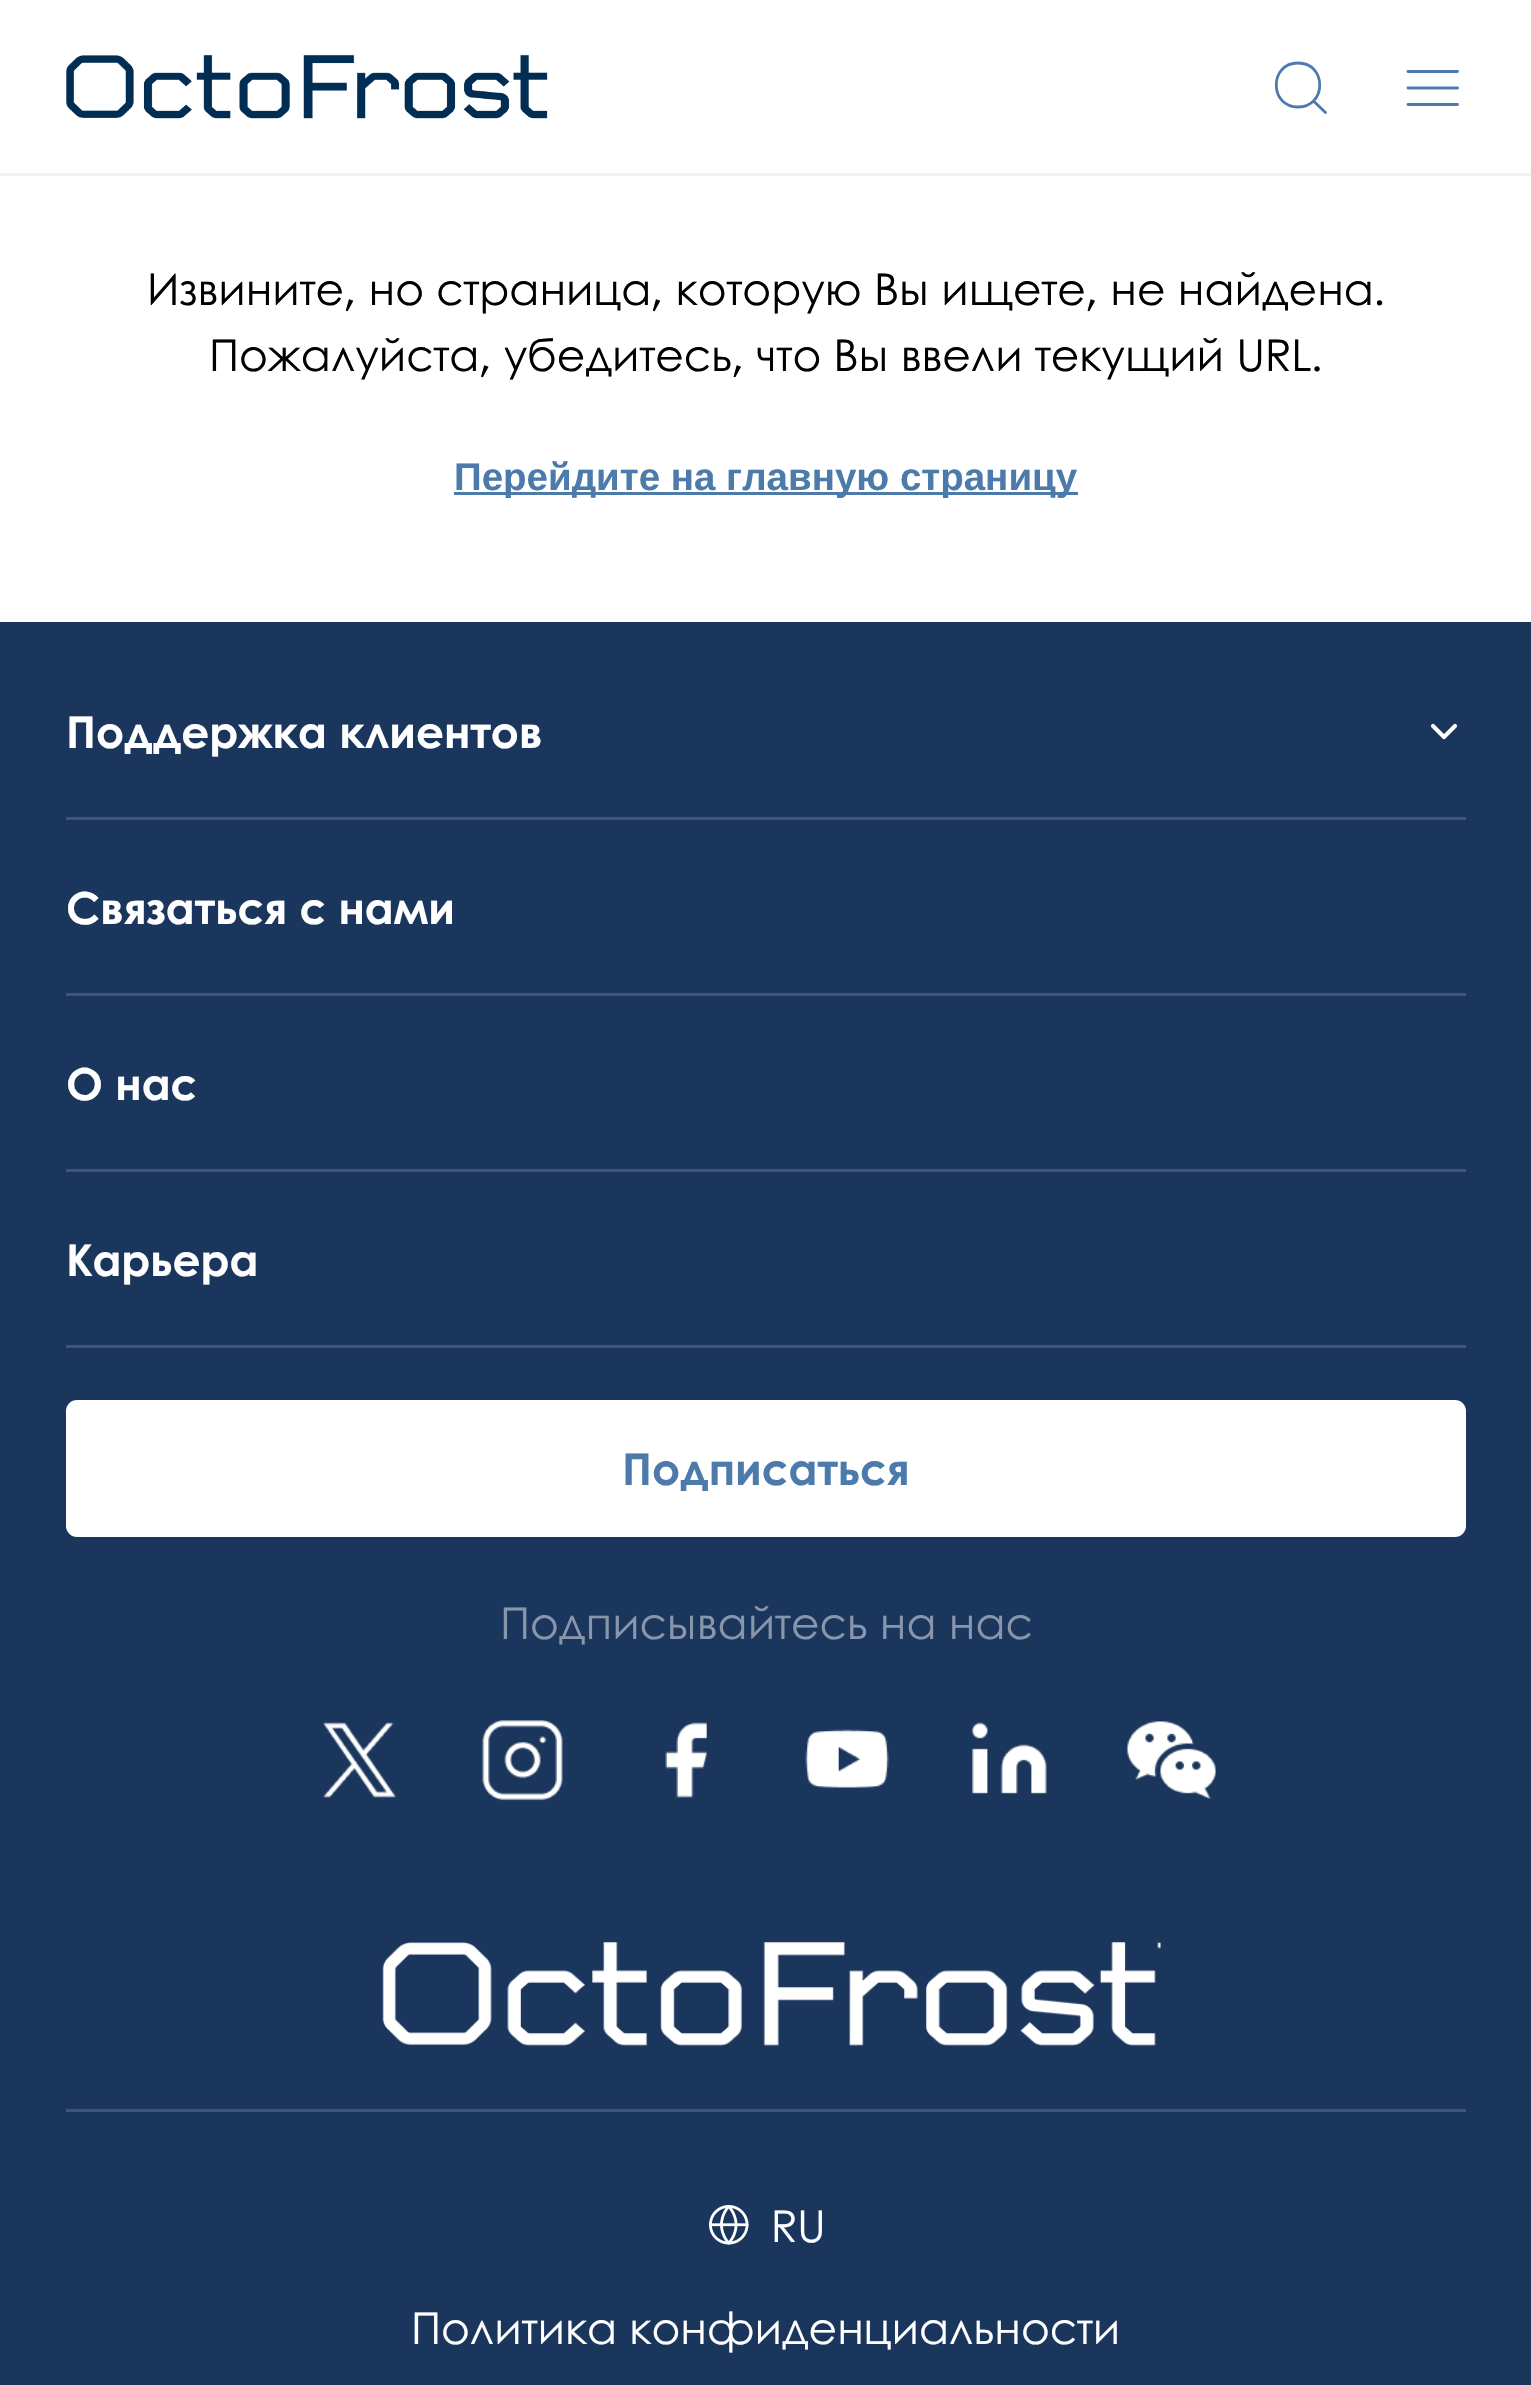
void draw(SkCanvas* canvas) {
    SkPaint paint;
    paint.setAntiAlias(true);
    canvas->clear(0xFFFFFFFF);
    paint.setColor(0xFFF2F2F2);
    canvas->drawRect(SkRect::MakeXYWH(0, 173, 1531, 3), paint);
    canvas->drawImageRect(SkImages::DeferredFromEncodedData(SkData::MakeFromFileName("img1.png")), SkRect::MakeXYWH(66, 54, 482, 65), SkSamplingOptions());
    paint.setStyle(SkPaint::kStroke_Style);
    paint.setStrokeWidth(2.8f);
    paint.setStrokeCap(SkPaint::kRound_Cap);
    paint.setStrokeJoin(SkPaint::kRound_Join);
    paint.setColor(0xFF4B7AAB);
    canvas->drawPath(SkPathBuilder().moveTo(1298, 107).cubicTo(1327, 107, 1327, 63, 1298, 63).cubicTo(1269, 63, 1269, 107, 1298, 107).close().moveTo(1325.5f, 112.5f).lineTo(1313.5f, 101).detach(), paint);
    canvas->drawPath(SkPathBuilder().moveTo(1408, 88).lineTo(1457.5f, 88).moveTo(1408, 71.5f).lineTo(1457.5f, 71.5f).moveTo(1408, 104.5f).lineTo(1457.5f, 104.5f).detach(), paint);
    SkFont font1(fontMgr->matchFamilyStyle("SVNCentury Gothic", SkFontStyle::Normal()), 44);
    font1.setSubpixel(true);
    paint.setStyle(SkPaint::kFill_Style);
    paint.setColor(0xFF000000);
    canvas->drawString("Извините, но страница, которую Вы ищете, не найдена.", 147, 305, font1, paint);
    canvas->drawString("Пожалуйста, убедитесь, что Вы ввели текущий URL.", 209, 371, font1, paint);
    paint.setColor(0xFF4B7AAB);
    canvas->drawRect(SkRect::MakeXYWH(454, 492, 624, 3), paint);
    SkFont font2(fontMgr->matchFamilyStyle("Liberation Sans", SkFontStyle::Bold()), 38.5f);
    font2.setSubpixel(true);
    canvas->drawString("Перейдите на главную страницу", 454, 490, font2, paint);
    paint.setColor(0xFF1B365D);
    canvas->drawRect(SkRect::MakeXYWH(0, 622, 1531, 1763), paint);
    paint.setColor(0xFF3F5677);
    canvas->drawRect(SkRect::MakeXYWH(66, 817, 1400, 3), paint);
    SkFont font3(fontMgr->matchFamilyStyle("SVNCentury Gothic", SkFontStyle::Bold()), 44);
    font3.setSubpixel(true);
    paint.setColor(0xFFFFFFFF);
    canvas->drawString("Поддержка клиентов", 66, 748, font3, paint);
    paint.setStyle(SkPaint::kStroke_Style);
    paint.setStrokeWidth(4.1f);
    canvas->drawPath(SkPathBuilder().moveTo(1433, 726).lineTo(1444, 737).lineTo(1455, 726).detach(), paint);
    paint.setStyle(SkPaint::kFill_Style);
    paint.setColor(0xFF3F5677);
    canvas->drawRect(SkRect::MakeXYWH(66, 993, 1400, 3), paint);
    paint.setColor(0xFFFFFFFF);
    canvas->drawString("Связаться с нами", 66, 924, font3, paint);
    paint.setColor(0xFF3F5677);
    canvas->drawRect(SkRect::MakeXYWH(66, 1169, 1400, 3), paint);
    paint.setColor(0xFFFFFFFF);
    canvas->drawString("О нас", 66, 1100, font3, paint);
    paint.setColor(0xFF3F5677);
    canvas->drawRect(SkRect::MakeXYWH(66, 1345, 1400, 3), paint);
    paint.setColor(0xFFFFFFFF);
    canvas->drawString("Карьера", 66, 1276, font3, paint);
    canvas->drawRoundRect(SkRect::MakeXYWH(66, 1400, 1400, 137), 11, 11, paint);
    paint.setColor(0xFF4B7AAB);
    canvas->drawString("Подписаться", 622, 1485, font3, paint);
    paint.setColor(0xFF8896AB);
    canvas->drawString("Подписывайтесь на нас", 500, 1639, font1, paint);
    canvas->drawImageRect(SkImages::DeferredFromEncodedData(SkData::MakeFromFileName("img2.png")), SkRect::MakeXYWH(323, 1722, 74, 76), SkSamplingOptions());
    canvas->drawImageRect(SkImages::DeferredFromEncodedData(SkData::MakeFromFileName("img3.png")), SkRect::MakeXYWH(482, 1720, 81, 81), SkSamplingOptions());
    canvas->drawImageRect(SkImages::DeferredFromEncodedData(SkData::MakeFromFileName("img4.png")), SkRect::MakeXYWH(665, 1722, 42, 76), SkSamplingOptions());
    canvas->drawImageRect(SkImages::DeferredFromEncodedData(SkData::MakeFromFileName("img5.png")), SkRect::MakeXYWH(805, 1729, 84, 59), SkSamplingOptions());
    canvas->drawImageRect(SkImages::DeferredFromEncodedData(SkData::MakeFromFileName("img6.png")), SkRect::MakeXYWH(972, 1722, 75, 72), SkSamplingOptions());
    canvas->drawImageRect(SkImages::DeferredFromEncodedData(SkData::MakeFromFileName("img7.png")), SkRect::MakeXYWH(1127, 1721, 89, 78), SkSamplingOptions());
    canvas->drawImageRect(SkImages::DeferredFromEncodedData(SkData::MakeFromFileName("img8.png")), SkRect::MakeXYWH(382, 1942, 779, 104), SkSamplingOptions());
    paint.setColor(0xFF3F5677);
    canvas->drawRect(SkRect::MakeXYWH(66, 2109, 1400, 3), paint);
    canvas->drawImageRect(SkImages::DeferredFromEncodedData(SkData::MakeFromFileName("img9.png")), SkRect::MakeXYWH(709, 2205, 40, 40), SkSamplingOptions());
    paint.setColor(0xFFFFFFFF);
    canvas->drawString("RU", 771, 2242, font1, paint);
    canvas->drawString("Политика конфиденциальности", 411, 2344, font1, paint);
}
